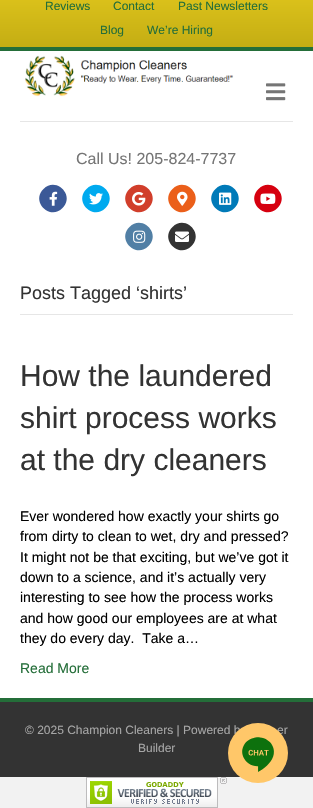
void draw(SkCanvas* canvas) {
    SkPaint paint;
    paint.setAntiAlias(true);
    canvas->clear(0xFFF2F2F2);
    {
        const SkColor colors[] = {0xFFEACF20, 0xFFC4AD13};
        const float stops[] = {0, 1};
        const SkPoint ends[] = {{157, -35}, {157, 47}};
        paint.setShader(SkGradientShader::MakeLinear(ends, colors, stops, 2, SkTileMode::kClamp));
        paint.setAlpha(255);
    }
    canvas->drawRect(SkRect::MakeXYWH(0, 0, 313, 47), paint);
    paint.setShader(nullptr);
    paint.setColor(0xFF246E39);
    canvas->drawRect(SkRect::MakeXYWH(0, 47, 313, 4), paint);
    SkFont font1(fontMgr->matchFamilyStyle("Liberation Sans", SkFontStyle::Normal()), 12);
    font1.setSubpixel(true);
    canvas->drawString("Reviews", 45, 10, font1, paint);
    canvas->drawString("Contact", 113, 10, font1, paint);
    canvas->drawString("Past Newsletters", 178, 10, font1, paint);
    canvas->drawString("Blog", 100, 34, font1, paint);
    canvas->drawString("We’re Hiring", 147, 34, font1, paint);
    paint.setColor(0xFFFFFFFF);
    canvas->drawRect(SkRect::MakeXYWH(0, 51, 313, 647), paint);
    canvas->drawImageRect(SkImages::DeferredFromEncodedData(SkData::MakeFromFileName("img1.png")), SkRect::MakeXYWH(266, 83, 20, 18), SkSamplingOptions());
    canvas->drawImageRect(SkImages::DeferredFromEncodedData(SkData::MakeFromFileName("img2.png")), SkRect::MakeXYWH(25, 55, 209, 42), SkSamplingOptions());
    paint.setColor(0xFFE6E6E6);
    canvas->drawRect(SkRect::MakeXYWH(20, 121, 273, 1), paint);
    SkFont font2(fontMgr->matchFamilyStyle("Liberation Sans", SkFontStyle::Normal()), 16);
    font2.setSubpixel(true);
    paint.setColor(0xFF757575);
    canvas->drawString("Call Us! 205-824-7737", 76, 164, font2, paint);
    paint.setColor(0xFF3B5997);
    canvas->drawPath(SkPathBuilder().moveTo(43.5f, 189).cubicTo(56, 176, 75.5f, 195.5f, 62.5f, 208).cubicTo(50, 221, 30.5f, 201.5f, 43.5f, 189).close().detach(), paint);
    canvas->drawImageRect(SkImages::DeferredFromEncodedData(SkData::MakeFromFileName("img3.png")), SkRect::MakeXYWH(49, 191, 9, 15), SkSamplingOptions());
    paint.setColor(0xFF00AAEF);
    canvas->drawPath(SkPathBuilder().moveTo(86.5f, 189).cubicTo(99, 176, 118.5f, 195.5f, 105.5f, 208).cubicTo(93, 221, 73.5f, 201.5f, 86.5f, 189).close().detach(), paint);
    canvas->drawImageRect(SkImages::DeferredFromEncodedData(SkData::MakeFromFileName("img4.png")), SkRect::MakeXYWH(89, 193, 14, 12), SkSamplingOptions());
    paint.setColor(0xFFD13E2B);
    canvas->drawPath(SkPathBuilder().moveTo(129.5f, 189).cubicTo(142, 176, 161.5f, 195.5f, 148.5f, 208).cubicTo(136, 221, 116.5f, 201.5f, 129.5f, 189).close().detach(), paint);
    canvas->drawImageRect(SkImages::DeferredFromEncodedData(SkData::MakeFromFileName("img5.png")), SkRect::MakeXYWH(132, 192, 14, 14), SkSamplingOptions());
    paint.setColor(0xFFEB5F1A);
    canvas->drawPath(SkPathBuilder().moveTo(172.5f, 189).cubicTo(185, 176, 204.5f, 195.5f, 191.5f, 208).cubicTo(179, 221, 159.5f, 201.5f, 172.5f, 189).close().detach(), paint);
    canvas->drawImageRect(SkImages::DeferredFromEncodedData(SkData::MakeFromFileName("img6.png")), SkRect::MakeXYWH(177, 191, 11, 15), SkSamplingOptions());
    paint.setColor(0xFF007AB8);
    canvas->drawPath(SkPathBuilder().moveTo(215.5f, 189).cubicTo(228, 176, 247.5f, 195.5f, 234.5f, 208).cubicTo(222, 221, 202.5f, 201.5f, 215.5f, 189).close().detach(), paint);
    canvas->drawImageRect(SkImages::DeferredFromEncodedData(SkData::MakeFromFileName("img7.png")), SkRect::MakeXYWH(219, 192, 13, 13), SkSamplingOptions());
    paint.setColor(0xFFD6000F);
    canvas->drawPath(SkPathBuilder().moveTo(258.5f, 189).cubicTo(271, 176, 290.5f, 195.5f, 277.5f, 208).cubicTo(265, 221, 245.5f, 201.5f, 258.5f, 189).close().detach(), paint);
    canvas->drawImageRect(SkImages::DeferredFromEncodedData(SkData::MakeFromFileName("img8.png")), SkRect::MakeXYWH(260, 193, 16, 11), SkSamplingOptions());
    paint.setColor(0xFF517FA5);
    canvas->drawPath(SkPathBuilder().moveTo(129.5f, 227).cubicTo(142, 214, 161.5f, 233.5f, 148.5f, 246).cubicTo(136, 259, 116.5f, 239.5f, 129.5f, 227).close().detach(), paint);
    canvas->drawImageRect(SkImages::DeferredFromEncodedData(SkData::MakeFromFileName("img9.png")), SkRect::MakeXYWH(133, 230, 13, 13), SkSamplingOptions());
    paint.setColor(0xFF333333);
    canvas->drawPath(SkPathBuilder().moveTo(172.5f, 227).cubicTo(185, 214, 204.5f, 233.5f, 191.5f, 246).cubicTo(179, 259, 159.5f, 239.5f, 172.5f, 227).close().detach(), paint);
    canvas->drawImageRect(SkImages::DeferredFromEncodedData(SkData::MakeFromFileName("img10.png")), SkRect::MakeXYWH(175, 231, 14, 11), SkSamplingOptions());
    paint.setColor(0xFFE6E6E6);
    canvas->drawRect(SkRect::MakeXYWH(20, 314, 273, 1), paint);
    SkFont font3(fontMgr->matchFamilyStyle("Liberation Sans", SkFontStyle::Normal()), 18);
    font3.setSubpixel(true);
    paint.setColor(0xFF333333);
    canvas->drawString("Posts Tagged ‘shirts’", 20, 299, font3, paint);
    SkFont font4(fontMgr->matchFamilyStyle("Liberation Sans", SkFontStyle::Normal()), 30);
    font4.setSubpixel(true);
    canvas->drawString("How the laundered", 20, 386, font4, paint);
    canvas->drawString("shirt process works", 20, 428, font4, paint);
    canvas->drawString("at the dry cleaners", 20, 470, font4, paint);
    SkFont font5(fontMgr->matchFamilyStyle("Liberation Sans", SkFontStyle::Normal()), 14);
    font5.setSubpixel(true);
    paint.setColor(0xFF000000);
    canvas->drawString("Ever wondered how exactly your shirts go", 20, 521, font5, paint);
    canvas->drawString("from dirty to clean to wet, dry and pressed?", 20, 541, font5, paint);
    canvas->drawString("It might not be that exciting, but we’ve got it", 20, 562, font5, paint);
    canvas->drawString("down to a science, and it’s actually very", 20, 582, font5, paint);
    canvas->drawString("interesting to see how the process works", 20, 602, font5, paint);
    canvas->drawString("and how good our employees are at what", 20, 623, font5, paint);
    canvas->drawString("they do every day.  Take a…", 20, 643, font5, paint);
    paint.setColor(0xFF246E39);
    canvas->drawString("Read More", 20, 673, font5, paint);
    paint.setColor(0xFF333333);
    canvas->drawRect(SkRect::MakeXYWH(0, 702, 313, 75), paint);
    paint.setColor(0xFF246E39);
    canvas->drawRect(SkRect::MakeXYWH(0, 698, 313, 4), paint);
    paint.setColor(0xFFA6A6A6);
    canvas->drawString("© 2025 Champion Cleaners | Powered b", 25, 734, font1, paint);
    canvas->drawString("er", 277, 734, font1, paint);
    canvas->drawString("Builder", 138, 752, font1, paint);
    canvas->drawImageRect(SkImages::DeferredFromEncodedData(SkData::MakeFromFileName("img11.png")), SkRect::MakeXYWH(228, 723, 60, 60), SkSamplingOptions());
    canvas->drawImageRect(SkImages::DeferredFromEncodedData(SkData::MakeFromFileName("img12.png")), SkRect::MakeXYWH(86, 777, 141, 31), SkSamplingOptions());
}
